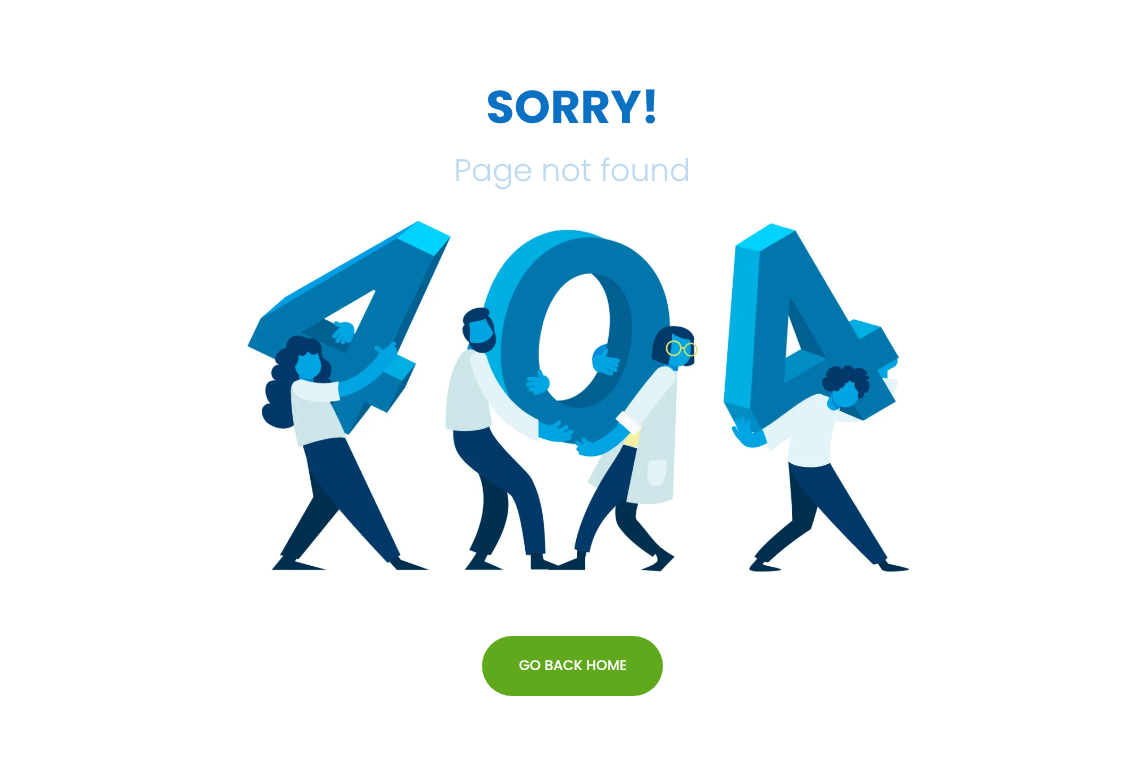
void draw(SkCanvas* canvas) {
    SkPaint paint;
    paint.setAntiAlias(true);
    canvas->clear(0xFFFFFFFF);
    SkFont font1(fontMgr->matchFamilyStyle("Poppins", SkFontStyle::Bold()), 46);
    font1.setSubpixel(true);
    paint.setColor(0xFF0C71C3);
    canvas->drawString("SORRY!", 486, 123, font1, paint);
    SkFont font2(fontMgr->matchFamilyStyle("Poppins", SkFontStyle(300, SkFontStyle::kNormal_Width, SkFontStyle::kUpright_Slant)), 31);
    font2.setSubpixel(true);
    paint.setColor(0xFFBDD9EF);
    canvas->drawString("Page not found", 454, 181, font2, paint);
    canvas->drawImageRect(SkImages::DeferredFromEncodedData(SkData::MakeFromFileName("img1.png")), SkRect::MakeXYWH(245, 220, 666, 353), SkSamplingOptions());
    paint.setColor(0xFF60A81C);
    canvas->drawRoundRect(SkRect::MakeXYWH(482, 636, 181, 60), 30, 30, paint);
    SkFont font3(fontMgr->matchFamilyStyle("Poppins", SkFontStyle(500, SkFontStyle::kNormal_Width, SkFontStyle::kUpright_Slant)), 14);
    font3.setSubpixel(true);
    paint.setColor(0xFFFFFFFF);
    canvas->drawString("GO BACK HOME", 519, 670, font3, paint);
}
